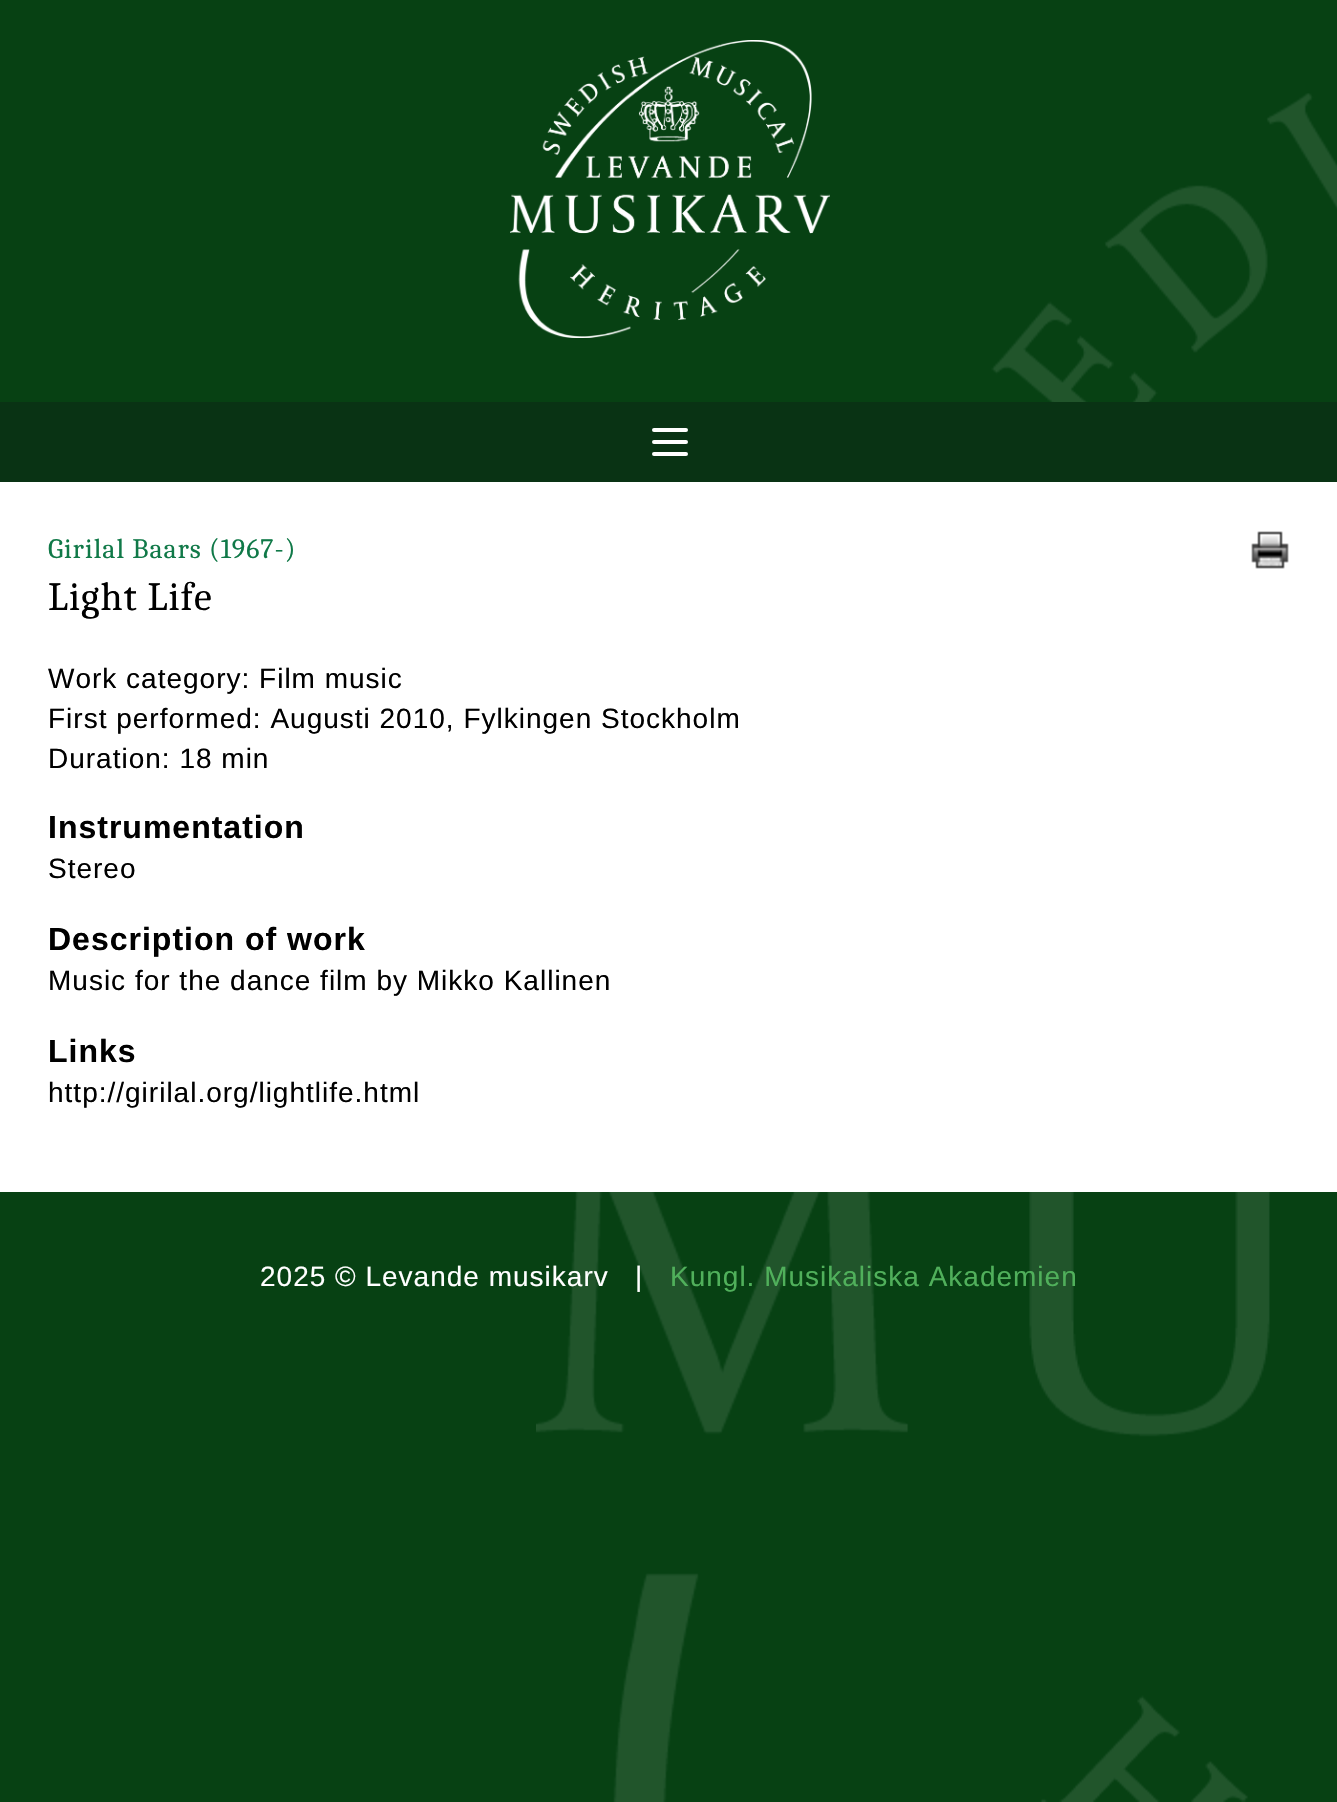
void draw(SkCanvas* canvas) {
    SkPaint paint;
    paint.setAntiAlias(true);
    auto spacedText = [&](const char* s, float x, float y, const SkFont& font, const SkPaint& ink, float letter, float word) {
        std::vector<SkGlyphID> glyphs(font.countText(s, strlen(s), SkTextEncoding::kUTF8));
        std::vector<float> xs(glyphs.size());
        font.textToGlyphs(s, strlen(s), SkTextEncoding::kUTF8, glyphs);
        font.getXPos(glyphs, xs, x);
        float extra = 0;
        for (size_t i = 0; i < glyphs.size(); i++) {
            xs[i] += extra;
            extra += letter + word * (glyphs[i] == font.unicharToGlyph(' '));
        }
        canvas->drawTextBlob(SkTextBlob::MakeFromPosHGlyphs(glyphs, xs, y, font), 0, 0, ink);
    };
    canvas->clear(0xFF074113);
    canvas->drawImageRect(SkImages::DeferredFromEncodedData(SkData::MakeFromFileName("img3.png")), SkRect::MakeXYWH(536, 93, 801, 1709), SkSamplingOptions());
    canvas->drawImageRect(SkImages::DeferredFromEncodedData(SkData::MakeFromFileName("img1.png")), SkRect::MakeXYWH(510, 40, 320, 298), SkSamplingOptions());
    paint.setColor(0xFF093314);
    canvas->drawRect(SkRect::MakeXYWH(0, 402, 1337, 80), paint);
    paint.setStyle(SkPaint::kStroke_Style);
    paint.setStrokeWidth(4);
    paint.setStrokeCap(SkPaint::kRound_Cap);
    paint.setStrokeJoin(SkPaint::kRound_Join);
    paint.setColor(0xFFFFFFFF);
    canvas->drawPath(SkPathBuilder().moveTo(654, 430).lineTo(686, 430).moveTo(654, 442).lineTo(686, 442).moveTo(654, 454).lineTo(686, 454).detach(), paint);
    paint.setStyle(SkPaint::kFill_Style);
    canvas->drawRect(SkRect::MakeXYWH(0, 482, 1337, 710), paint);
    SkFont font1(fontMgr->matchFamilyStyle("Caladea", SkFontStyle::Normal()), 28);
    font1.setSubpixel(true);
    paint.setColor(0xFF107948);
    spacedText("Girilal Baars (1967-)", 48, 558, font1, paint, 1, 0);
    canvas->drawImageRect(SkImages::DeferredFromEncodedData(SkData::MakeFromFileName("img2.png")), SkRect::MakeXYWH(1251, 531, 38, 38), SkSamplingOptions());
    SkFont font2(fontMgr->matchFamilyStyle("Caladea", SkFontStyle::Normal()), 40);
    font2.setSubpixel(true);
    paint.setColor(0xFF000000);
    spacedText("Light Life", 48, 610, font2, paint, 1, 0);
    SkFont font3(fontMgr->matchFamilyStyle("Liberation Sans", SkFontStyle::Normal()), 28);
    font3.setSubpixel(true);
    spacedText("Work category: Film music", 48, 688, font3, paint, 1, 0);
    spacedText("First performed: Augusti 2010, Fylkingen Stockholm", 48, 728, font3, paint, 1, 0);
    spacedText("Duration: 18 min", 48, 768, font3, paint, 1, 0);
    SkFont font4(fontMgr->matchFamilyStyle("Liberation Sans", SkFontStyle::Bold()), 32);
    font4.setSubpixel(true);
    spacedText("Instrumentation", 48, 838, font4, paint, 1, 0);
    spacedText("Stereo", 48, 878, font3, paint, 1, 0);
    spacedText("Description of work", 48, 950, font4, paint, 1, 0);
    spacedText("Music for the dance film by Mikko Kallinen", 48, 990, font3, paint, 1, 0);
    spacedText("Links", 48, 1062, font4, paint, 1, 0);
    spacedText("http://girilal.org/lightlife.html", 48, 1102, font3, paint, 1, 0);
    paint.setColor(0xFFFFFFFF);
    spacedText("2025 © Levande musikarv", 260, 1286, font3, paint, 1, 0);
    spacedText("|", 635, 1286, font3, paint, 1, 0);
    paint.setColor(0xFF50B05B);
    spacedText("Kungl. Musikaliska Akademien", 670, 1286, font3, paint, 1, 0);
}
